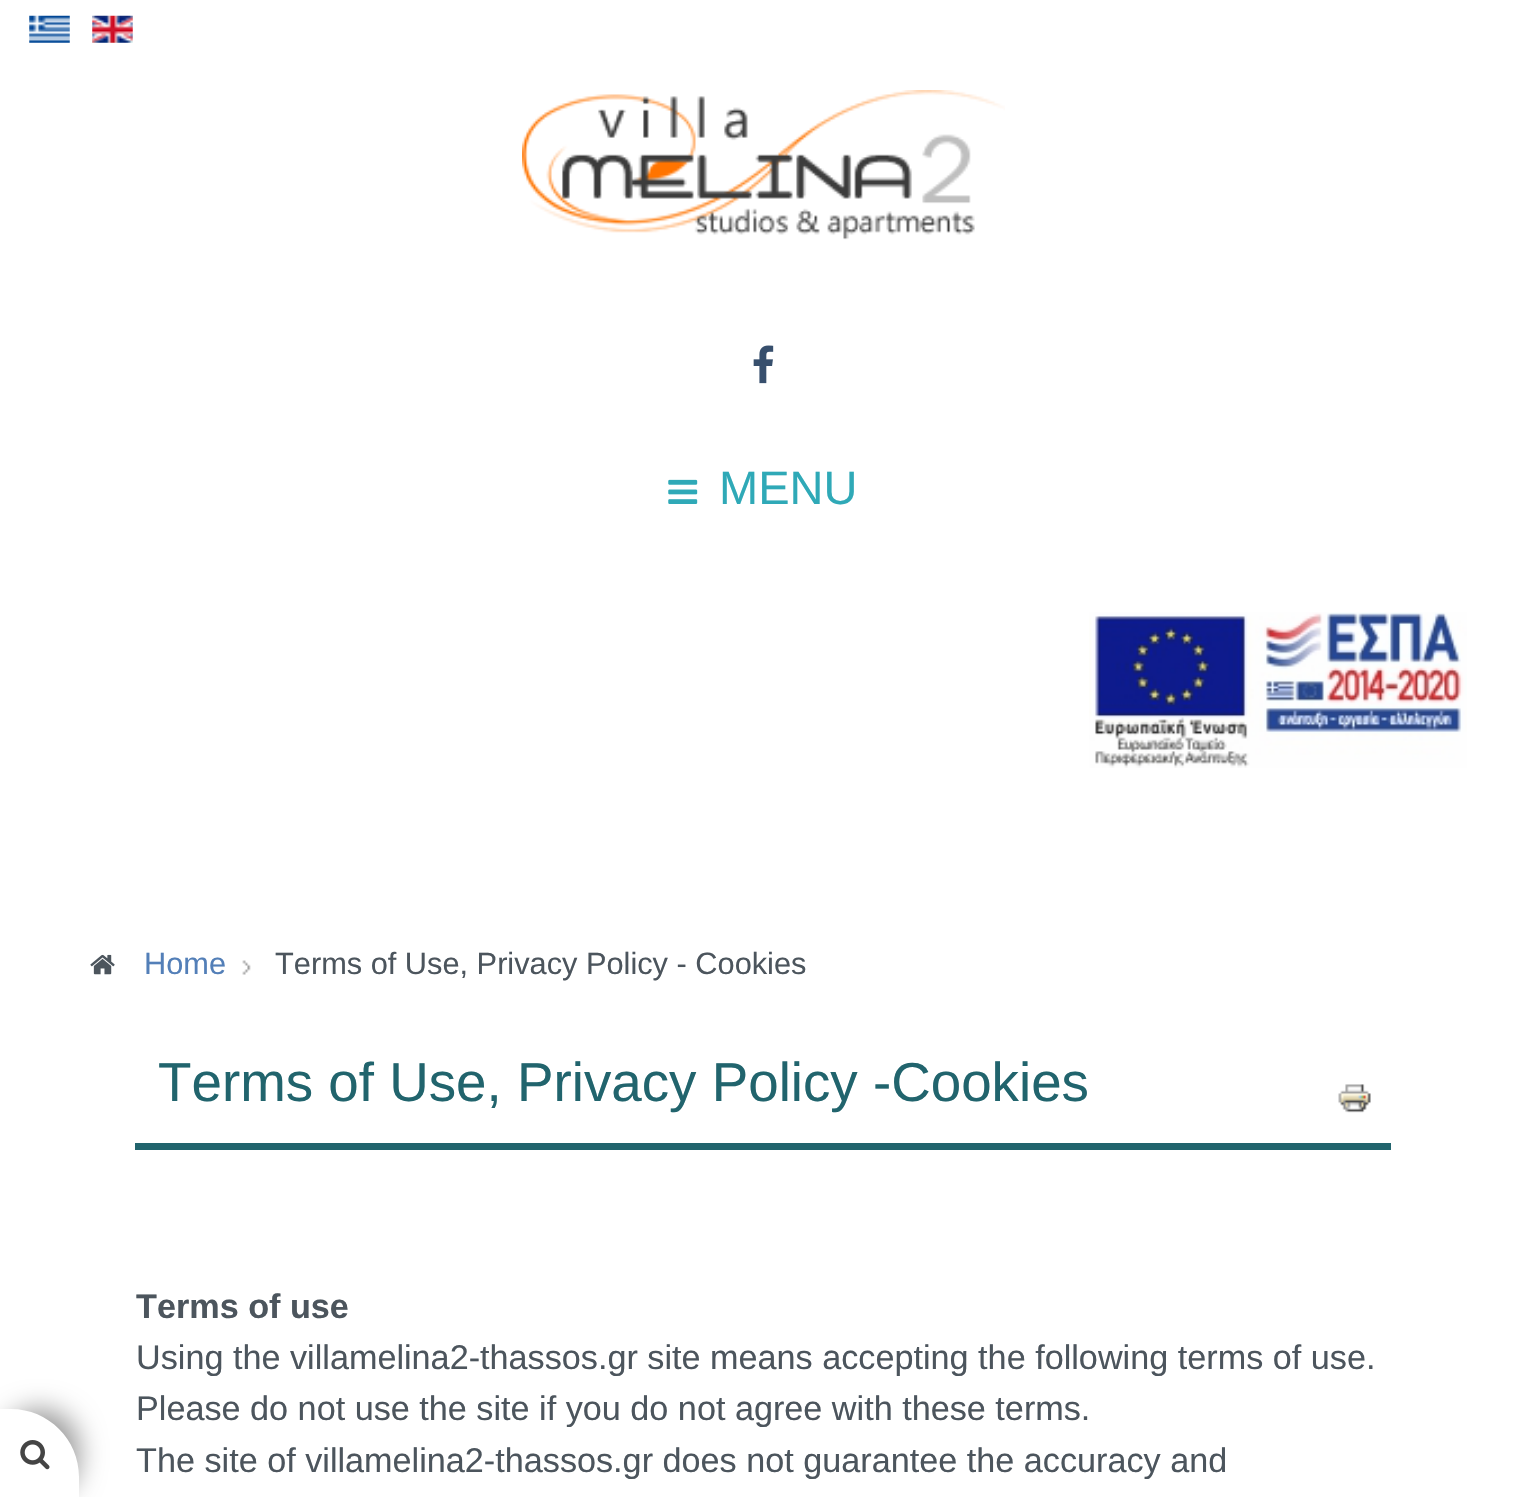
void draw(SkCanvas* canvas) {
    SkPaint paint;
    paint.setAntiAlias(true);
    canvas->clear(0xFFFFFFFF);
    canvas->drawImageRect(SkImages::DeferredFromEncodedData(SkData::MakeFromFileName("img1.png")), SkRect::MakeXYWH(29, 15, 41, 28), SkSamplingOptions());
    canvas->drawImageRect(SkImages::DeferredFromEncodedData(SkData::MakeFromFileName("img2.png")), SkRect::MakeXYWH(92, 15, 41, 28), SkSamplingOptions());
    canvas->drawImageRect(SkImages::DeferredFromEncodedData(SkData::MakeFromFileName("img3.png")), SkRect::MakeXYWH(522, 90, 483, 150), SkSamplingOptions());
    canvas->drawImageRect(SkImages::DeferredFromEncodedData(SkData::MakeFromFileName("img4.png")), SkRect::MakeXYWH(753, 345, 21, 39), SkSamplingOptions());
    canvas->drawImageRect(SkImages::DeferredFromEncodedData(SkData::MakeFromFileName("img5.png")), SkRect::MakeXYWH(668, 479, 30, 25), SkSamplingOptions());
    SkFont font1(fontMgr->matchFamilyStyle("Liberation Sans", SkFontStyle::Normal()), 47);
    font1.setSubpixel(true);
    paint.setColor(0xFF2FA9B7);
    canvas->drawString("MENU", 719, 504, font1, paint);
    canvas->drawImageRect(SkImages::DeferredFromEncodedData(SkData::MakeFromFileName("img6.png")), SkRect::MakeXYWH(1089, 612, 378, 156), SkSamplingOptions());
    canvas->drawImageRect(SkImages::DeferredFromEncodedData(SkData::MakeFromFileName("img7.png")), SkRect::MakeXYWH(20, 1440, 30, 30), SkSamplingOptions());
    canvas->save();
    canvas->clipPath(SkPathBuilder(SkPathFillType::kEvenOdd).moveTo(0, 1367).lineTo(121, 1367).lineTo(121, 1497).lineTo(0, 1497).close().moveTo(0, 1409).lineTo(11, 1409).cubicTo(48.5f, 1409, 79, 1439.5f, 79, 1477).lineTo(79, 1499).lineTo(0, 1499).close().detach(), true);
    paint.setColor(0x66000000);
    paint.setMaskFilter(SkMaskFilter::MakeBlur(kNormal_SkBlurStyle, 13.5f));
    canvas->drawRoundRect(SkRect::MakeXYWH(0, 1409, 79, 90), 68, 68, paint);
    paint.setMaskFilter(nullptr);
    canvas->restore();
    canvas->drawImageRect(SkImages::DeferredFromEncodedData(SkData::MakeFromFileName("img8.png")), SkRect::MakeXYWH(90, 954, 25, 21), SkSamplingOptions());
    SkFont font2(fontMgr->matchFamilyStyle("Liberation Sans", SkFontStyle::Normal()), 30.75f);
    font2.setSubpixel(true);
    paint.setColor(0xFF537FB8);
    canvas->drawString("Home", 144, 974, font2, paint);
    canvas->drawImageRect(SkImages::DeferredFromEncodedData(SkData::MakeFromFileName("img9.png")), SkRect::MakeXYWH(242, 960, 9, 15), SkSamplingOptions());
    paint.setColor(0xFF4C555D);
    canvas->drawString("Terms of Use, Privacy Policy - Cookies", 275, 974, font2, paint);
    paint.setColor(0xFF21646D);
    canvas->drawRect(SkRect::MakeXYWH(135, 1143, 1256, 7), paint);
    SkFont font3(fontMgr->matchFamilyStyle("Liberation Sans", SkFontStyle::Normal()), 54.75f);
    font3.setSubpixel(true);
    canvas->drawString("Terms of Use, Privacy Policy -Cookies", 158, 1101, font3, paint);
    canvas->drawImageRect(SkImages::DeferredFromEncodedData(SkData::MakeFromFileName("img10.png")), SkRect::MakeXYWH(1338, 1084, 33, 29), SkSamplingOptions());
    SkFont font4(fontMgr->matchFamilyStyle("Liberation Sans", SkFontStyle::Bold()), 34.2f);
    font4.setSubpixel(true);
    paint.setColor(0xFF4C555D);
    canvas->drawString("Terms of use", 136, 1318, font4, paint);
    SkFont font5(fontMgr->matchFamilyStyle("Liberation Sans", SkFontStyle::Normal()), 34.2f);
    font5.setSubpixel(true);
    canvas->drawString("Using the villamelina2-thassos.gr site means accepting the following terms of use.", 136, 1369, font5, paint);
    canvas->drawString("Please do not use the site if you do not agree with these terms.", 136, 1420, font5, paint);
    canvas->drawString("The site of villamelina2-thassos.gr does not guarantee the accuracy and", 136, 1472, font5, paint);
}
